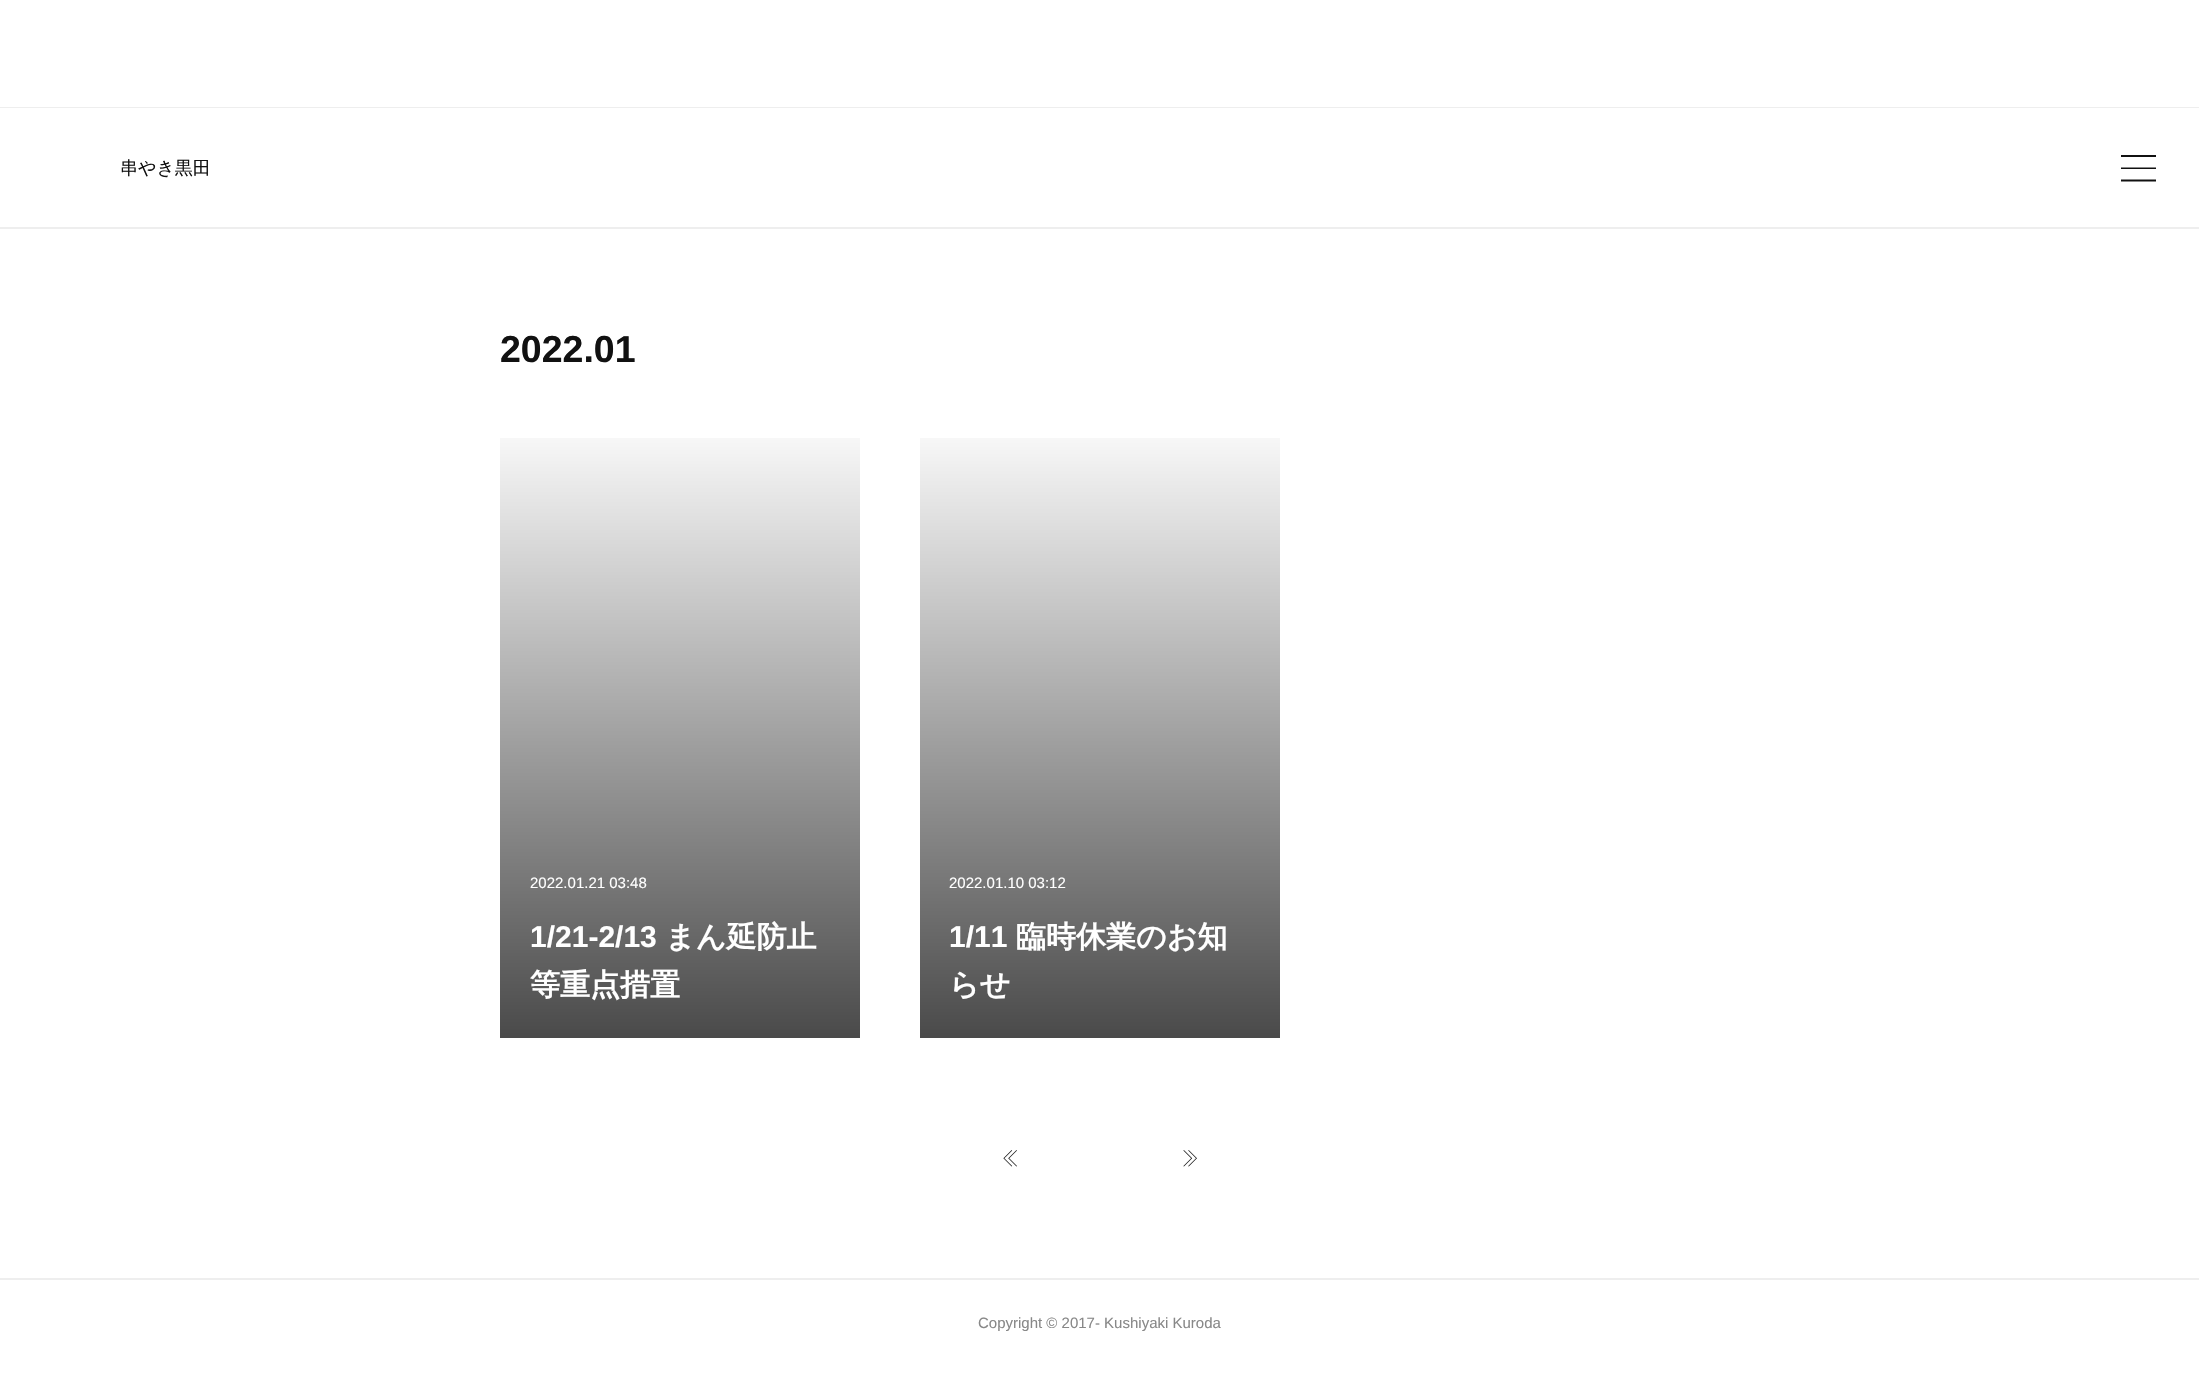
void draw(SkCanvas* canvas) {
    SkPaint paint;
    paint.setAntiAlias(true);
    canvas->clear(0xFFFFFFFF);
    paint.setColor(0xFFEEEEEE);
    canvas->drawRect(SkRect::MakeXYWH(0, 107, 2199, 1), paint);
    canvas->drawRect(SkRect::MakeXYWH(0, 227, 2199, 2), paint);
    SkFont font1(fontMgr->matchFamilyStyle("WenQuanYi Zen Hei", SkFontStyle(500, SkFontStyle::kNormal_Width, SkFontStyle::kUpright_Slant)), 18);
    font1.setSubpixel(true);
    paint.setColor(0xFF111111);
    canvas->drawString("串やき黒田", 120, 174, font1, paint);
    canvas->drawPath(SkPathBuilder().moveTo(2156, 157).lineTo(2121, 157).lineTo(2121, 155).lineTo(2156, 155).close().moveTo(2156, 167.5f).lineTo(2156, 169).lineTo(2121, 169).lineTo(2121, 167.5f).close().moveTo(2156, 179.5f).lineTo(2156, 181.5f).lineTo(2121, 181.5f).lineTo(2121, 179.5f).close().detach(), paint);
    SkFont font2(fontMgr->matchFamilyStyle("Liberation Sans", SkFontStyle::Bold()), 37.5f);
    font2.setSubpixel(true);
    canvas->drawString("2022.01", 500, 362, font2, paint);
    {
        const SkColor colors[] = {0xFFF7F7F7, 0xFF4A4A4A};
        const float stops[] = {0, 1};
        const SkPoint ends[] = {{680, 438}, {680, 1038}};
        paint.setShader(SkGradientShader::MakeLinear(ends, colors, stops, 2, SkTileMode::kClamp));
        paint.setAlpha(255);
    }
    canvas->drawRect(SkRect::MakeXYWH(500, 438, 360, 600), paint);
    SkFont font3(fontMgr->matchFamilyStyle("Liberation Sans", SkFontStyle::Normal()), 15);
    font3.setSubpixel(true);
    paint.setShader(nullptr);
    paint.setColor(0xFFFFFFFF);
    canvas->drawString("2022.01.21 03:48", 530, 888, font3, paint);
    SkFont font4(fontMgr->matchFamilyStyle("Liberation Sans", SkFontStyle::Bold()), 30);
    font4.setSubpixel(true);
    canvas->drawString("1/21-2/13", 530, 947, font4, paint);
    SkFont font5(fontMgr->matchFamilyStyle("WenQuanYi Zen Hei", SkFontStyle::Bold()), 30);
    font5.setSubpixel(true);
    canvas->drawString("まん延防止", 665, 947, font5, paint);
    canvas->drawString("等重点措置", 530, 995, font5, paint);
    {
        const SkColor colors[] = {0xFFF7F7F7, 0xFF4A4A4A};
        const float stops[] = {0, 1};
        const SkPoint ends[] = {{1100, 438}, {1100, 1038}};
        paint.setShader(SkGradientShader::MakeLinear(ends, colors, stops, 2, SkTileMode::kClamp));
        paint.setAlpha(255);
    }
    canvas->drawRect(SkRect::MakeXYWH(920, 438, 360, 600), paint);
    paint.setShader(nullptr);
    paint.setColor(0xFFFFFFFF);
    canvas->drawString("2022.01.10 03:12", 949, 888, font3, paint);
    canvas->drawString("1/11", 949, 947, font4, paint);
    canvas->drawString("臨時休業のお知", 1016, 947, font5, paint);
    canvas->drawString("らせ", 949, 995, font5, paint);
    canvas->drawImageRect(SkImages::DeferredFromEncodedData(SkData::MakeFromFileName("img1.png")), SkRect::MakeXYWH(1003, 1150, 14, 17), SkSamplingOptions());
    canvas->drawImageRect(SkImages::DeferredFromEncodedData(SkData::MakeFromFileName("img2.png")), SkRect::MakeXYWH(1183, 1150, 14, 17), SkSamplingOptions());
    paint.setColor(0xFFEEEEEE);
    canvas->drawRect(SkRect::MakeXYWH(0, 1278, 2199, 2), paint);
    paint.setColor(0xFF888888);
    canvas->drawString("Copyright © 2017- Kushiyaki Kuroda", 978, 1328, font3, paint);
}
